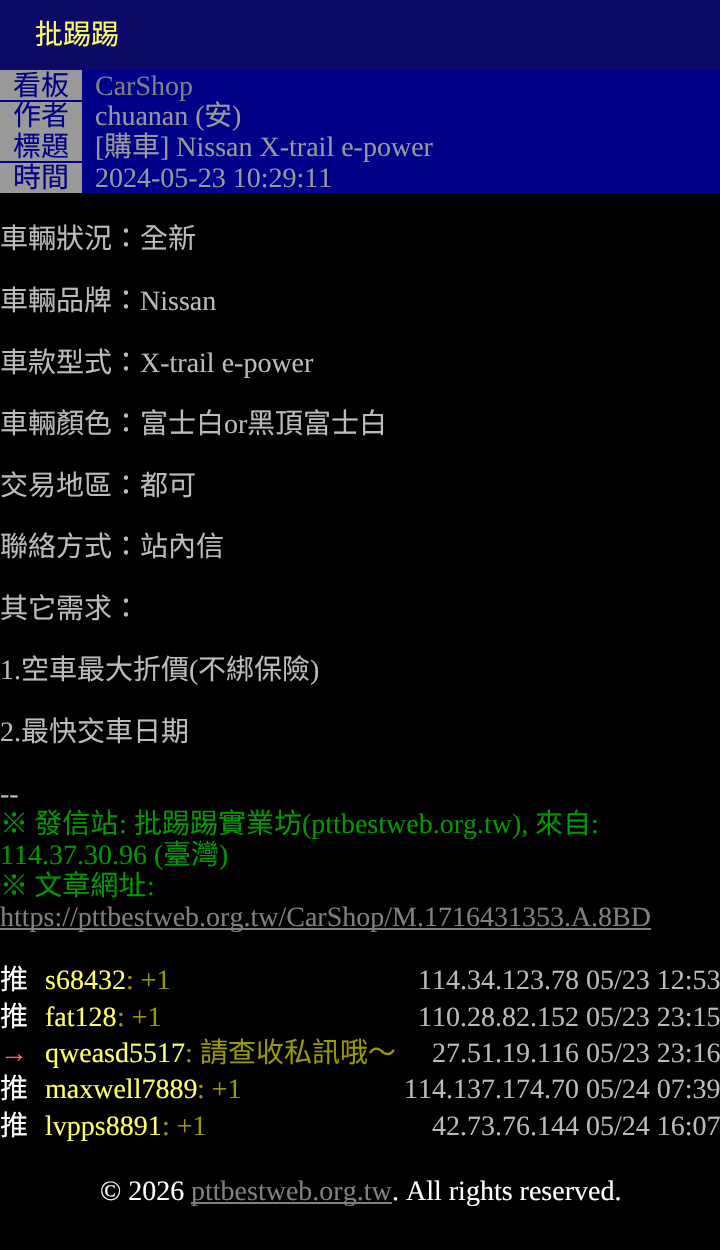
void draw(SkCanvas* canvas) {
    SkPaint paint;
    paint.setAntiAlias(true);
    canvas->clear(0xFF000000);
    paint.setColor(0xFF0C0A66);
    canvas->drawRect(SkRect::MakeXYWH(0, 0, 720, 70), paint);
    SkFont font1(fontMgr->matchFamilyStyle("Noto Sans CJK TC", SkFontStyle::Normal()), 28);
    font1.setSubpixel(true);
    paint.setColor(0xFFFFFF66);
    canvas->drawString("批踢踢", 35, 44, font1, paint);
    paint.setColor(0xFF000088);
    canvas->drawRect(SkRect::MakeXYWH(0, 70, 720, 32), paint);
    paint.setColor(0xFF999999);
    canvas->drawRect(SkRect::MakeXYWH(0, 70, 82, 30), paint);
    paint.setColor(0xFF000088);
    canvas->drawString("看板", 13, 95, font1, paint);
    SkFont font2(fontMgr->matchFamilyStyle("Liberation Serif", SkFontStyle::Normal()), 28);
    font2.setSubpixel(true);
    paint.setColor(0xFF808080);
    canvas->drawString("CarShop", 95, 95, font2, paint);
    paint.setColor(0xFF000088);
    canvas->drawRect(SkRect::MakeXYWH(82, 102, 638, 29), paint);
    canvas->drawRect(SkRect::MakeXYWH(0, 131, 720, 32), paint);
    paint.setColor(0xFF999999);
    canvas->drawRect(SkRect::MakeXYWH(0, 102, 82, 59), paint);
    paint.setColor(0xFF000088);
    canvas->drawString("作者", 13, 125, font1, paint);
    paint.setColor(0xFF999999);
    canvas->drawString("chuanan (", 95, 125, font2, paint);
    canvas->drawString("安", 204, 125, font1, paint);
    canvas->drawString(")", 232, 125, font2, paint);
    paint.setColor(0xFF000088);
    canvas->drawString("標題", 13, 156, font1, paint);
    paint.setColor(0xFF999999);
    canvas->drawString("[", 95, 156, font2, paint);
    canvas->drawString("購車", 104, 156, font1, paint);
    canvas->drawString("] Nissan X-trail e-power", 160, 156, font2, paint);
    paint.setColor(0xFF000088);
    canvas->drawRect(SkRect::MakeXYWH(82, 163, 638, 30), paint);
    paint.setColor(0xFF999999);
    canvas->drawRect(SkRect::MakeXYWH(0, 163, 82, 30), paint);
    paint.setColor(0xFF000088);
    canvas->drawString("時間", 13, 187, font1, paint);
    paint.setColor(0xFF999999);
    canvas->drawString("2024-05-23 10:29:11", 95, 187, font2, paint);
    paint.setColor(0xFFBBBBBB);
    canvas->drawString("車輛狀況：全新", 0, 248, font1, paint);
    canvas->drawString("車輛品牌：", 0, 310, font1, paint);
    canvas->drawString("Nissan", 140, 310, font2, paint);
    canvas->drawString("車款型式：", 0, 372, font1, paint);
    canvas->drawString("X-trail e-power", 140, 372, font2, paint);
    canvas->drawString("車輛顏色：富士白", 0, 433, font1, paint);
    canvas->drawString("or", 224, 433, font2, paint);
    canvas->drawString("黑頂富士白", 247, 433, font1, paint);
    canvas->drawString("交易地區：都可", 0, 495, font1, paint);
    canvas->drawString("聯絡方式：站內信", 0, 556, font1, paint);
    canvas->drawString("其它需求：", 0, 618, font1, paint);
    canvas->drawString("1.", 0, 679, font2, paint);
    canvas->drawString("空車最大折價", 21, 679, font1, paint);
    canvas->drawString("(", 189, 679, font2, paint);
    canvas->drawString("不綁保險", 198, 679, font1, paint);
    canvas->drawString(")", 310, 679, font2, paint);
    canvas->drawString("2.", 0, 741, font2, paint);
    canvas->drawString("最快交車日期", 21, 741, font1, paint);
    canvas->drawString("--", 0, 803, font2, paint);
    paint.setColor(0xFF009900);
    canvas->drawString("※ 發信站", 0, 833, font1, paint);
    canvas->drawString(":", 119, 833, font2, paint);
    canvas->drawString("批踢踢實業坊", 134, 833, font1, paint);
    canvas->drawString("(pttbestweb.org.tw),", 302, 833, font2, paint);
    canvas->drawString("來自", 535, 833, font1, paint);
    canvas->drawString(":", 591, 833, font2, paint);
    canvas->drawString("114.37.30.96 (", 0, 864, font2, paint);
    canvas->drawString("臺灣", 163, 864, font1, paint);
    canvas->drawString(")", 219, 864, font2, paint);
    canvas->drawString("※ 文章網址", 0, 895, font1, paint);
    canvas->drawString(":", 147, 895, font2, paint);
    paint.setColor(0xFF808080);
    canvas->drawRect(SkRect::MakeXYWH(0, 928, 651, 2), paint);
    canvas->drawString("https://pttbestweb.org.tw/CarShop/M.1716431353.A.8BD", 0, 926, font2, paint);
    paint.setColor(0xFFFFFFFF);
    canvas->drawString("推", 0, 989, font1, paint);
    paint.setColor(0xFFFFFF66);
    canvas->drawString("s68432", 45, 989, font2, paint);
    paint.setColor(0xFF999900);
    canvas->drawString(": +1", 126, 989, font2, paint);
    paint.setColor(0xFFBBBBBB);
    canvas->drawString("114.34.123.78 05/23 12:53", 418, 989, font2, paint);
    paint.setColor(0xFFFFFFFF);
    canvas->drawString("推", 0, 1026, font1, paint);
    paint.setColor(0xFFFFFF66);
    canvas->drawString("fat128", 45, 1026, font2, paint);
    paint.setColor(0xFF999900);
    canvas->drawString(": +1", 117, 1026, font2, paint);
    paint.setColor(0xFFBBBBBB);
    canvas->drawString("110.28.82.152 05/23 23:15", 418, 1026, font2, paint);
    paint.setColor(0xFFFF6666);
    canvas->drawString("→", 0, 1062, font2, paint);
    paint.setColor(0xFFFFFF66);
    canvas->drawString("qweasd5517", 45, 1062, font2, paint);
    paint.setColor(0xFF999900);
    canvas->drawString(":", 185, 1062, font2, paint);
    canvas->drawString("請查收私訊哦～", 200, 1062, font1, paint);
    paint.setColor(0xFFBBBBBB);
    canvas->drawString("27.51.19.116 05/23 23:16", 432, 1062, font2, paint);
    paint.setColor(0xFFFFFFFF);
    canvas->drawString("推", 0, 1098, font1, paint);
    paint.setColor(0xFFFFFF66);
    canvas->drawString("maxwell7889", 45, 1098, font2, paint);
    paint.setColor(0xFF999900);
    canvas->drawString(": +1", 197, 1098, font2, paint);
    paint.setColor(0xFFBBBBBB);
    canvas->drawString("114.137.174.70 05/24 07:39", 404, 1098, font2, paint);
    paint.setColor(0xFFFFFFFF);
    canvas->drawString("推", 0, 1135, font1, paint);
    paint.setColor(0xFFFFFF66);
    canvas->drawString("lvpps8891", 45, 1135, font2, paint);
    paint.setColor(0xFF999900);
    canvas->drawString(": +1", 162, 1135, font2, paint);
    paint.setColor(0xFFBBBBBB);
    canvas->drawString("42.73.76.144 05/24 16:07", 432, 1135, font2, paint);
    paint.setColor(0xFFFFFFFF);
    canvas->drawString("© 2026", 100, 1200, font2, paint);
    paint.setColor(0xFF808080);
    canvas->drawRect(SkRect::MakeXYWH(191, 1202, 201, 2), paint);
    canvas->drawString("pttbestweb.org.tw", 191, 1200, font2, paint);
    paint.setColor(0xFFFFFFFF);
    canvas->drawString(". All rights reserved.", 392, 1200, font2, paint);
}
